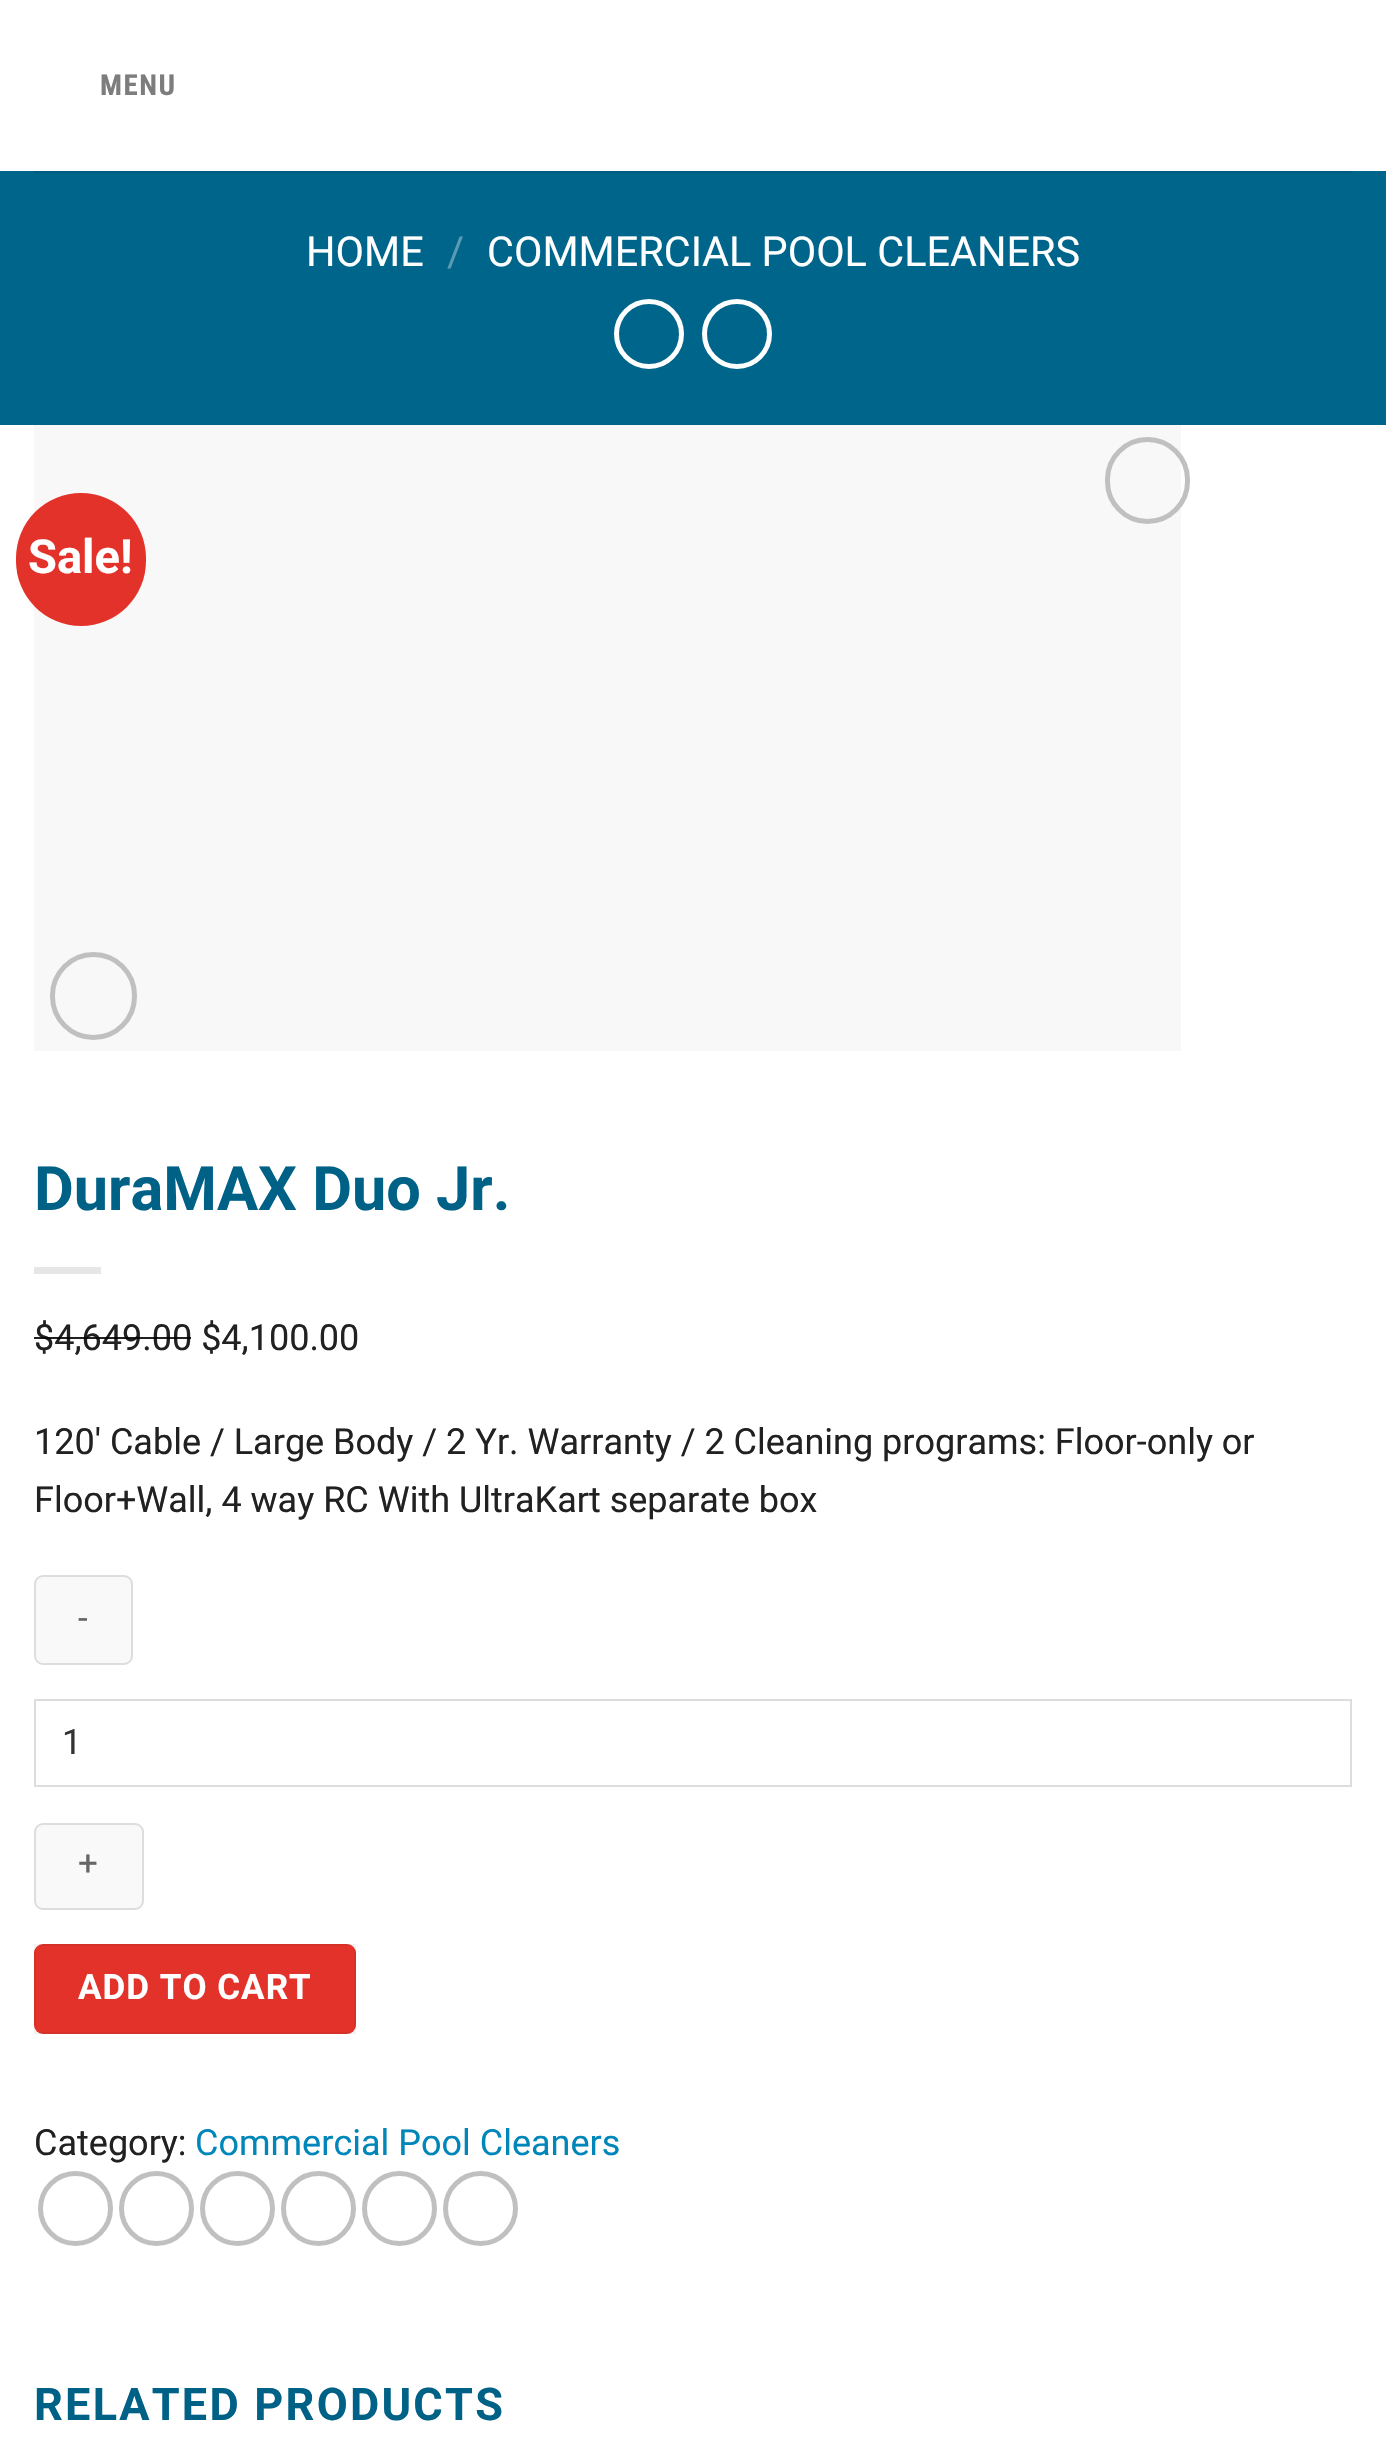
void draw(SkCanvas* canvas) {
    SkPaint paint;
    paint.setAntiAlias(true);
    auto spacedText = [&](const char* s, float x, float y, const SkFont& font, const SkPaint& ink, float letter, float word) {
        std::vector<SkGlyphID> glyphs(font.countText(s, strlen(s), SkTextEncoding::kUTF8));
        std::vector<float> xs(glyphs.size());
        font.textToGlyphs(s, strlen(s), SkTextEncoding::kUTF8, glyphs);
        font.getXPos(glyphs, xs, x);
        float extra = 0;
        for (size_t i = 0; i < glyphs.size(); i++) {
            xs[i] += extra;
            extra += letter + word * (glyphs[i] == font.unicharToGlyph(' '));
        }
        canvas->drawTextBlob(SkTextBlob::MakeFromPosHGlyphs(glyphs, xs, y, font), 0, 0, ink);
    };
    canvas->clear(0xFFFFFFFF);
    SkFont font1(fontMgr->matchFamilyStyle("Roboto Condensed", SkFontStyle::Bold()), 29);
    font1.setSubpixel(true);
    paint.setColor(0xFF7D7D7D);
    spacedText("MENU", 100, 95, font1, paint, 1.5f, 0);
    paint.setColor(0xFF00658A);
    canvas->drawRect(SkRect::MakeXYWH(0, 171, 1386, 254), paint);
    paint.setColor(0xFF005C7E);
    canvas->drawRect(SkRect::MakeXYWH(34, 171, 1318, 2), paint);
    SkFont font2(fontMgr->matchFamilyStyle("Roboto", SkFontStyle::Normal()), 41.4f);
    font2.setSubpixel(true);
    paint.setColor(0xFFFFFFFF);
    canvas->drawString("HOME", 306, 266, font2, paint);
    paint.setColor(0xFF599BB3);
    canvas->drawString("/", 447, 266, font2, paint);
    paint.setColor(0xFFFFFFFF);
    canvas->drawString("COMMERCIAL POOL CLEANERS", 487, 266, font2, paint);
    paint.setStyle(SkPaint::kStroke_Style);
    paint.setStrokeWidth(5);
    canvas->drawCircle(649, 334, 32.5f, paint);
    canvas->drawCircle(737, 334, 32.5f, paint);
    paint.setStyle(SkPaint::kFill_Style);
    paint.setColor(0xFFF8F8F8);
    canvas->drawRect(SkRect::MakeXYWH(34, 425, 1147, 626), paint);
    paint.setStyle(SkPaint::kStroke_Style);
    paint.setColor(0xFFC0C0C0);
    canvas->drawRoundRect(SkRect::MakeXYWH(1107.5f, 439.5f, 80, 82), 40, 40, paint);
    paint.setStyle(SkPaint::kFill_Style);
    paint.setColor(0xFFE3322A);
    canvas->drawRoundRect(SkRect::MakeXYWH(16, 493, 130, 133), 65, 65, paint);
    SkFont font3(fontMgr->matchFamilyStyle("Roboto", SkFontStyle::Bold()), 47);
    font3.setSubpixel(true);
    paint.setColor(0xFFFFFFFF);
    canvas->drawString("Sale!", 28, 573, font3, paint);
    paint.setStyle(SkPaint::kStroke_Style);
    paint.setColor(0xFFC0C0C0);
    canvas->drawRoundRect(SkRect::MakeXYWH(52.5f, 954.5f, 82, 83), 41, 41, paint);
    SkFont font4(fontMgr->matchFamilyStyle("Roboto", SkFontStyle::Bold()), 61.25f);
    font4.setSubpixel(true);
    paint.setStyle(SkPaint::kFill_Style);
    paint.setColor(0xFF006187);
    canvas->drawString("DuraMAX Duo Jr.", 34, 1210, font4, paint);
    paint.setColor(0xFFE6E6E6);
    canvas->drawRect(SkRect::MakeXYWH(34, 1267, 67, 7), paint);
    SkFont font5(fontMgr->matchFamilyStyle("Roboto", SkFontStyle::Normal()), 36);
    font5.setSubpixel(true);
    paint.setColor(0xFF212121);
    canvas->drawString("$4,649.00 $4,100.00", 34, 1350, font5, paint);
    paint.setColor(0xDE000000);
    canvas->drawRect(SkRect::MakeXYWH(34, 1337, 20, 2), paint);
    canvas->drawRect(SkRect::MakeXYWH(54, 1337, 137, 2), paint);
    paint.setColor(0xFF212121);
    canvas->drawString("120′ Cable / Large Body / 2 Yr. Warranty / 2 Cleaning programs: Floor-only or", 34, 1454, font5, paint);
    canvas->drawString("Floor+Wall, 4 way RC With UltraKart separate box", 34, 1512, font5, paint);
    paint.setColor(0xFFF9F9F9);
    canvas->drawRoundRect(SkRect::MakeXYWH(35, 1576, 97, 88), 8, 8, paint);
    paint.setStyle(SkPaint::kStroke_Style);
    paint.setStrokeWidth(2);
    paint.setColor(0xFFDDDDDD);
    canvas->drawRoundRect(SkRect::MakeXYWH(35, 1576, 97, 88), 8, 8, paint);
    SkFont font6(fontMgr->matchFamilyStyle("Roboto", SkFontStyle::Normal()), 35);
    font6.setSubpixel(true);
    paint.setStyle(SkPaint::kFill_Style);
    paint.setColor(0xFF666666);
    spacedText("-", 78, 1630, font6, paint, 1, 0);
    paint.setStyle(SkPaint::kStroke_Style);
    paint.setColor(0xFFDDDDDD);
    canvas->drawRect(SkRect::MakeXYWH(35, 1700, 1316, 86), paint);
    paint.setStyle(SkPaint::kFill_Style);
    paint.setColor(0xFF333333);
    canvas->drawString("1", 62, 1754, font6, paint);
    paint.setColor(0xFFF9F9F9);
    canvas->drawRoundRect(SkRect::MakeXYWH(35, 1824, 108, 85), 8, 8, paint);
    paint.setStyle(SkPaint::kStroke_Style);
    paint.setColor(0xFFDDDDDD);
    canvas->drawRoundRect(SkRect::MakeXYWH(35, 1824, 108, 85), 8, 8, paint);
    paint.setStyle(SkPaint::kFill_Style);
    paint.setColor(0xFF666666);
    spacedText("+", 78, 1875, font6, paint, 1, 0);
    paint.setColor(0xFFE3322A);
    canvas->drawRoundRect(SkRect::MakeXYWH(34, 1944, 322, 90), 9, 9, paint);
    paint.setStyle(SkPaint::kStroke_Style);
    paint.setColor(0x0D000000);
    canvas->drawRect(SkRect::MakeXYWH(35, 1945, 320, 88), paint);
    SkFont font7(fontMgr->matchFamilyStyle("Roboto", SkFontStyle::Bold()), 35);
    font7.setSubpixel(true);
    paint.setStyle(SkPaint::kFill_Style);
    paint.setColor(0xFFFFFFFF);
    spacedText("ADD TO CART", 78, 1999, font7, paint, 1, 0);
    paint.setColor(0xFF212121);
    canvas->drawString("Category:", 34, 2155, font5, paint);
    paint.setColor(0xFF0086B9);
    canvas->drawString("Commercial Pool Cleaners", 195, 2155, font5, paint);
    paint.setStyle(SkPaint::kStroke_Style);
    paint.setStrokeWidth(5);
    paint.setColor(0xFFC0C0C0);
    canvas->drawCircle(75.5f, 2208.5f, 35, paint);
    canvas->drawCircle(156.5f, 2208.5f, 35, paint);
    canvas->drawCircle(237.5f, 2208.5f, 35, paint);
    canvas->drawCircle(318.5f, 2208.5f, 35, paint);
    canvas->drawCircle(399.5f, 2208.5f, 35, paint);
    canvas->drawCircle(480.5f, 2208.5f, 35, paint);
    SkFont font8(fontMgr->matchFamilyStyle("Roboto", SkFontStyle::Bold()), 45);
    font8.setSubpixel(true);
    paint.setStyle(SkPaint::kFill_Style);
    paint.setColor(0xFF006187);
    spacedText("RELATED PRODUCTS", 34, 2420, font8, paint, 2.25f, 0);
}
